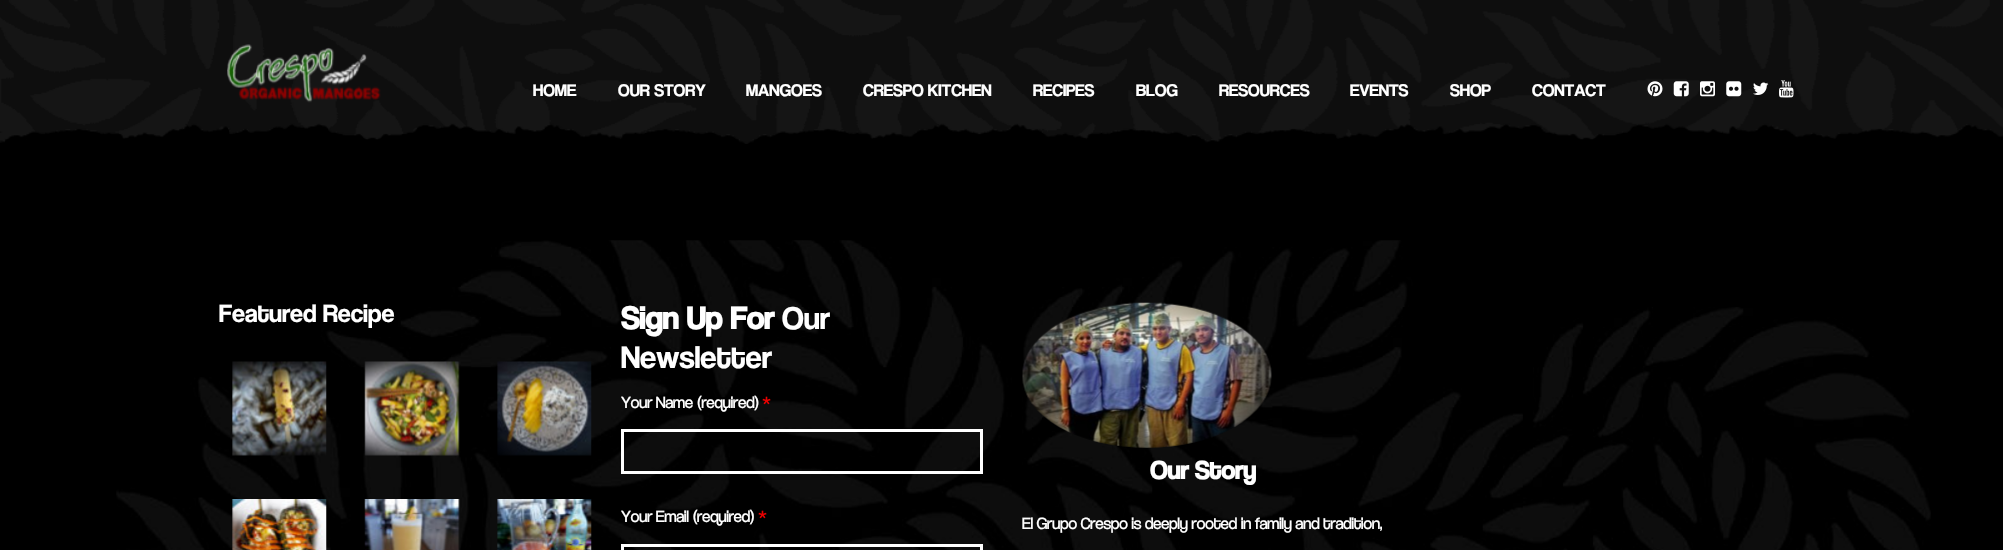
void draw(SkCanvas* canvas) {
    SkPaint paint;
    paint.setAntiAlias(true);
    canvas->clear(0xFF000000);
    canvas->drawImageRect(SkImages::DeferredFromEncodedData(SkData::MakeFromFileName("img1.png")), SkRect::MakeXYWH(0, 0, 2003, 144), SkSamplingOptions());
    canvas->drawImageRect(SkImages::DeferredFromEncodedData(SkData::MakeFromFileName("img2.png")), SkRect::MakeXYWH(227, 44, 154, 59), SkSamplingOptions());
    SkFont font1(fontMgr->matchFamilyStyle("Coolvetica", SkFontStyle::Normal()), 17.5f);
    font1.setSubpixel(true);
    paint.setColor(0xFFFFFFFF);
    canvas->drawString("HOME", 533, 96, font1, paint);
    canvas->drawString("OUR STORY", 618, 96, font1, paint);
    canvas->drawString("MANGOES", 746, 96, font1, paint);
    canvas->drawString("CRESPO KITCHEN", 863, 96, font1, paint);
    canvas->drawString("RECIPES", 1033, 96, font1, paint);
    canvas->drawString("BLOG", 1136, 96, font1, paint);
    canvas->drawString("RESOURCES", 1219, 96, font1, paint);
    canvas->drawString("EVENTS", 1350, 96, font1, paint);
    canvas->drawString("SHOP", 1450, 96, font1, paint);
    canvas->drawString("CONTACT", 1532, 96, font1, paint);
    canvas->drawImageRect(SkImages::DeferredFromEncodedData(SkData::MakeFromFileName("img3.png")), SkRect::MakeXYWH(1647, 81, 16, 16), SkSamplingOptions());
    canvas->drawImageRect(SkImages::DeferredFromEncodedData(SkData::MakeFromFileName("img4.png")), SkRect::MakeXYWH(1673, 81, 16, 16), SkSamplingOptions());
    canvas->drawImageRect(SkImages::DeferredFromEncodedData(SkData::MakeFromFileName("img5.png")), SkRect::MakeXYWH(1700, 81, 15, 16), SkSamplingOptions());
    canvas->drawImageRect(SkImages::DeferredFromEncodedData(SkData::MakeFromFileName("img6.png")), SkRect::MakeXYWH(1726, 81, 16, 16), SkSamplingOptions());
    canvas->drawImageRect(SkImages::DeferredFromEncodedData(SkData::MakeFromFileName("img7.png")), SkRect::MakeXYWH(1753, 82, 16, 13), SkSamplingOptions());
    canvas->drawImageRect(SkImages::DeferredFromEncodedData(SkData::MakeFromFileName("img8.png")), SkRect::MakeXYWH(1779, 80, 15, 18), SkSamplingOptions());
    canvas->drawImageRect(SkImages::DeferredFromEncodedData(SkData::MakeFromFileName("img9.png")), SkRect::MakeXYWH(116, 240, 1815, 310), SkSamplingOptions());
    SkFont font2(fontMgr->matchFamilyStyle("Coolvetica", SkFontStyle::Normal()), 26);
    font2.setSubpixel(true);
    canvas->drawString("Featured Recipe", 219, 322, font2, paint);
    canvas->drawImageRect(SkImages::DeferredFromEncodedData(SkData::MakeFromFileName("img10.png")), SkRect::MakeXYWH(232, 361, 95, 95), SkSamplingOptions());
    canvas->drawImageRect(SkImages::DeferredFromEncodedData(SkData::MakeFromFileName("img11.png")), SkRect::MakeXYWH(364, 361, 96, 95), SkSamplingOptions());
    canvas->drawImageRect(SkImages::DeferredFromEncodedData(SkData::MakeFromFileName("img12.png")), SkRect::MakeXYWH(497, 361, 95, 95), SkSamplingOptions());
    canvas->drawImageRect(SkImages::DeferredFromEncodedData(SkData::MakeFromFileName("img13.png")), SkRect::MakeXYWH(232, 499, 95, 51), SkSamplingOptions());
    canvas->drawImageRect(SkImages::DeferredFromEncodedData(SkData::MakeFromFileName("img14.png")), SkRect::MakeXYWH(364, 499, 96, 51), SkSamplingOptions());
    canvas->drawImageRect(SkImages::DeferredFromEncodedData(SkData::MakeFromFileName("img15.png")), SkRect::MakeXYWH(497, 499, 95, 51), SkSamplingOptions());
    SkFont font3(fontMgr->matchFamilyStyle("Coolvetica", SkFontStyle::Bold()), 32.5f);
    font3.setSubpixel(true);
    canvas->drawString("Sign Up For", 621, 329, font3, paint);
    SkFont font4(fontMgr->matchFamilyStyle("Coolvetica", SkFontStyle::Normal()), 32.5f);
    font4.setSubpixel(true);
    canvas->drawString("Our", 782, 329, font4, paint);
    canvas->drawString("Newsletter", 621, 368, font4, paint);
    SkFont font5(fontMgr->matchFamilyStyle("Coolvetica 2", SkFontStyle::Bold()), 16.25f);
    font5.setSubpixel(true);
    canvas->drawString("Your Name (required)", 621, 408, font5, paint);
    paint.setColor(0xFFE80000);
    canvas->drawString("*", 762, 408, font5, paint);
    paint.setStyle(SkPaint::kStroke_Style);
    paint.setStrokeWidth(3);
    paint.setColor(0xFFFFFFFF);
    canvas->drawRect(SkRect::MakeXYWH(622.5f, 430.5f, 359, 42), paint);
    paint.setStyle(SkPaint::kFill_Style);
    canvas->drawString("Your Email (required)", 621, 522, font5, paint);
    paint.setColor(0xFFE80000);
    canvas->drawString("*", 758, 522, font5, paint);
    paint.setStyle(SkPaint::kStroke_Style);
    paint.setColor(0xFFFFFFFF);
    canvas->drawRect(SkRect::MakeXYWH(622.5f, 545.5f, 359, 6), paint);
    canvas->drawImageRect(SkImages::DeferredFromEncodedData(SkData::MakeFromFileName("img16.png")), SkRect::MakeXYWH(1022, 302, 250, 146), SkSamplingOptions());
    SkFont font6(fontMgr->matchFamilyStyle("Coolvetica", SkFontStyle::Bold()), 26);
    font6.setSubpixel(true);
    paint.setStyle(SkPaint::kFill_Style);
    canvas->drawString("Our Story", 1150, 479, font6, paint);
    canvas->drawString("El Grupo Crespo is deeply rooted in family and tradition,", 1022, 529, font5, paint);
}
